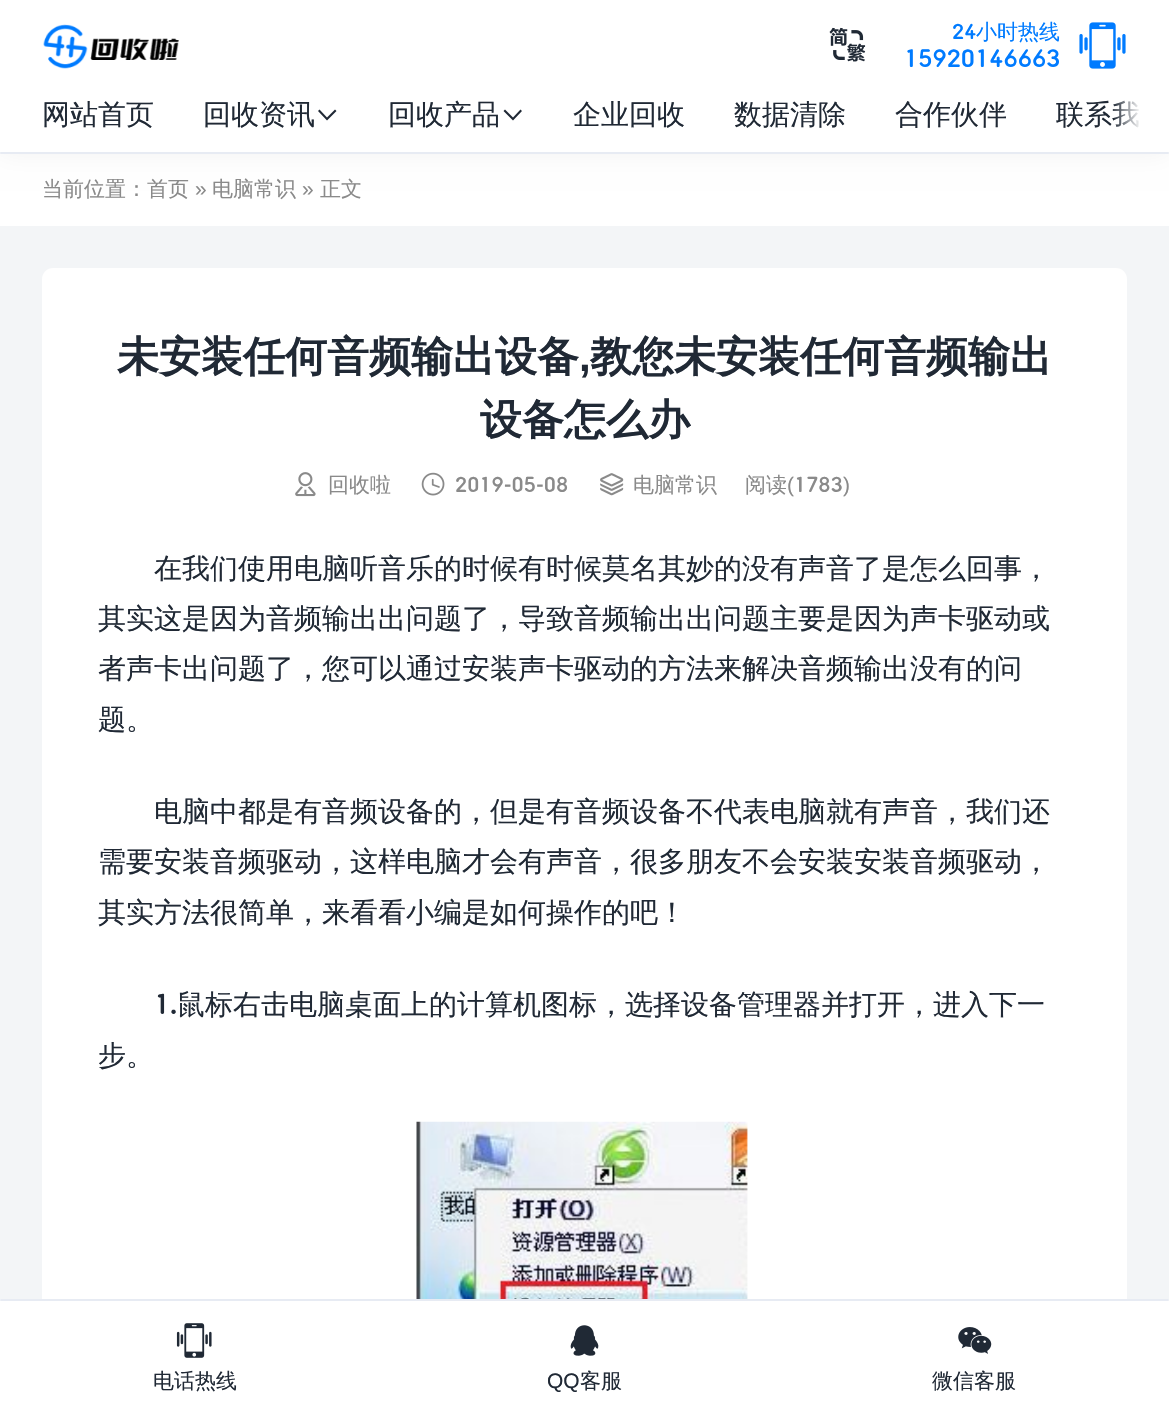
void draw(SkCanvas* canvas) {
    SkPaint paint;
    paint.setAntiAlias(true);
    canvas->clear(0xFFF3F5F7);
    paint.setColor(0xFFFFFFFF);
    canvas->drawRect(SkRect::MakeXYWH(0, 152, 1169, 74), paint);
    paint.setColor(0x0F000000);
    paint.setMaskFilter(SkMaskFilter::MakeBlur(kNormal_SkBlurStyle, 13));
    canvas->drawRect(SkRect::MakeXYWH(0, 0, 1169, 152), paint);
    paint.setMaskFilter(nullptr);
    paint.setColor(0xFFFFFFFF);
    canvas->drawRect(SkRect::MakeXYWH(0, 0, 1169, 152), paint);
    canvas->drawImageRect(SkImages::DeferredFromEncodedData(SkData::MakeFromFileName("img1.png")), SkRect::MakeXYWH(43, 24, 136, 45), SkSamplingOptions());
    canvas->drawImageRect(SkImages::DeferredFromEncodedData(SkData::MakeFromFileName("img2.png")), SkRect::MakeXYWH(829, 27, 37, 35), SkSamplingOptions());
    SkFont font1(fontMgr->matchFamilyStyle("Lato", SkFontStyle::Bold()), 21);
    font1.setSubpixel(true);
    paint.setColor(0xFF007BFF);
    canvas->drawString("24", 952, 39, font1, paint);
    SkFont font2(fontMgr->matchFamilyStyle("WenQuanYi Zen Hei", SkFontStyle(500, SkFontStyle::kNormal_Width, SkFontStyle::kUpright_Slant)), 21);
    font2.setSubpixel(true);
    canvas->drawString("小时热线", 976, 39, font2, paint);
    canvas->drawImageRect(SkImages::DeferredFromEncodedData(SkData::MakeFromFileName("img3.png")), SkRect::MakeXYWH(1079, 22, 47, 47), SkSamplingOptions());
    SkFont font3(fontMgr->matchFamilyStyle("Lato", SkFontStyle::Bold()), 24.5f);
    font3.setSubpixel(true);
    canvas->drawString("15920146663", 904, 67, font3, paint);
    SkFont font4(fontMgr->matchFamilyStyle("WenQuanYi Zen Hei", SkFontStyle(500, SkFontStyle::kNormal_Width, SkFontStyle::kUpright_Slant)), 28);
    font4.setSubpixel(true);
    paint.setColor(0xFF202935);
    canvas->drawString("网站首页", 42, 124, font4, paint);
    canvas->drawString("回收资讯", 203, 124, font4, paint);
    canvas->drawPath(SkPathBuilder().moveTo(318, 111).lineTo(319.5f, 109.5f).lineTo(327, 117.5f).lineTo(335, 109.5f).lineTo(336.5f, 111).lineTo(327, 120.5f).close().detach(), paint);
    canvas->drawString("回收产品", 388, 124, font4, paint);
    canvas->drawPath(SkPathBuilder().moveTo(503.5f, 111).lineTo(505, 109.5f).lineTo(513, 117.5f).lineTo(520.5f, 109.5f).lineTo(522, 111).lineTo(513, 120.5f).close().detach(), paint);
    canvas->drawString("企业回收", 573, 124, font4, paint);
    canvas->drawString("数据清除", 734, 124, font4, paint);
    canvas->drawString("合作伙伴", 895, 124, font4, paint);
    canvas->drawString("联系我", 1056, 124, font4, paint);
    {
        const SkColor colors[] = {0x00FFFFFF, 0xFFFFFFFF, 0xFFFFFFFF};
        const float stops[] = {0, 0.5f, 1};
        const SkPoint ends[] = {{1113, 114}, {1169, 114}};
        paint.setShader(SkGradientShader::MakeLinear(ends, colors, stops, 3, SkTileMode::kClamp));
        paint.setAlpha(255);
    }
    canvas->drawRect(SkRect::MakeXYWH(1114, 101, 25, 27), paint);
    paint.setShader(nullptr);
    paint.setColor(0xFFE7EBF3);
    canvas->drawRoundRect(SkRect::MakeXYWH(0, 152, 1169, 2), 1, 1, paint);
    paint.setColor(0xFF8A8A8A);
    canvas->drawString("当前位置：首页", 42, 196, font2, paint);
    SkFont font5(fontMgr->matchFamilyStyle("Liberation Sans", SkFontStyle::Normal()), 21);
    font5.setSubpixel(true);
    canvas->drawString("»", 195, 196, font5, paint);
    canvas->drawString("电脑常识", 212, 196, font2, paint);
    canvas->drawString("»", 302, 196, font5, paint);
    canvas->drawString("正文", 320, 196, font2, paint);
    paint.setColor(0xFFFFFFFF);
    canvas->drawRoundRect(SkRect::MakeXYWH(42, 268, 1085, 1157), 11, 11, paint);
    SkFont font6(fontMgr->matchFamilyStyle("WenQuanYi Zen Hei", SkFontStyle::Bold()), 42);
    font6.setSubpixel(true);
    paint.setColor(0xFF202935);
    canvas->drawString("未安装任何音频输出设备", 117, 371, font6, paint);
    SkFont font7(fontMgr->matchFamilyStyle("Liberation Sans", SkFontStyle::Bold()), 42);
    font7.setSubpixel(true);
    canvas->drawString(",", 579, 371, font7, paint);
    canvas->drawString("教您未安装任何音频输出", 590, 371, font6, paint);
    canvas->drawString("设备怎么办", 480, 434, font6, paint);
    canvas->drawImageRect(SkImages::DeferredFromEncodedData(SkData::MakeFromFileName("img4.png")), SkRect::MakeXYWH(295, 472, 21, 25), SkSamplingOptions());
    paint.setColor(0xFF8A8A8A);
    canvas->drawString("回收啦", 328, 492, font2, paint);
    canvas->drawImageRect(SkImages::DeferredFromEncodedData(SkData::MakeFromFileName("img5.png")), SkRect::MakeXYWH(421, 472, 24, 24), SkSamplingOptions());
    canvas->drawString("2019-05-08", 455, 492, font1, paint);
    canvas->drawImageRect(SkImages::DeferredFromEncodedData(SkData::MakeFromFileName("img6.png")), SkRect::MakeXYWH(600, 473, 24, 23), SkSamplingOptions());
    canvas->drawString("电脑常识", 633, 492, font2, paint);
    canvas->drawString("阅读", 745, 492, font2, paint);
    canvas->drawString("(", 787, 492, font5, paint);
    canvas->drawString("1783", 794, 492, font1, paint);
    canvas->drawString(")", 843, 492, font5, paint);
    paint.setColor(0xFF202935);
    canvas->drawString("在我们使用电脑听音乐的时候有时候莫名其妙的没有声音了是怎么回事，", 154, 578, font4, paint);
    canvas->drawString("其实这是因为音频输出出问题了，导致音频输出出问题主要是因为声卡驱动或", 98, 628, font4, paint);
    canvas->drawString("者声卡出问题了，您可以通过安装声卡驱动的方法来解决音频输出没有的问", 98, 678, font4, paint);
    canvas->drawString("题。", 98, 729, font4, paint);
    canvas->drawString("电脑中都是有音频设备的，但是有音频设备不代表电脑就有声音，我们还", 154, 821, font4, paint);
    canvas->drawString("需要安装音频驱动，这样电脑才会有声音，很多朋友不会安装安装音频驱动，", 98, 871, font4, paint);
    canvas->drawString("其实方法很简单，来看看小编是如何操作的吧！", 98, 922, font4, paint);
    SkFont font8(fontMgr->matchFamilyStyle("Lato", SkFontStyle::Bold()), 28);
    font8.setSubpixel(true);
    canvas->drawString("1.", 154, 1014, font8, paint);
    canvas->drawString("鼠标右击电脑桌面上的计算机图标，选择设备管理器并打开，进入下一", 177, 1014, font4, paint);
    canvas->drawString("步。", 98, 1065, font4, paint);
    canvas->drawImageRect(SkImages::DeferredFromEncodedData(SkData::MakeFromFileName("img7.png")), SkRect::MakeXYWH(416, 1121, 332, 178), SkSamplingOptions());
    paint.setColor(0xFFFFFFFF);
    canvas->drawRect(SkRect::MakeXYWH(0, 1299, 1169, 115), paint);
    paint.setColor(0xFFE7EBF3);
    canvas->drawRoundRect(SkRect::MakeXYWH(0, 1299, 1169, 2), 1, 1, paint);
    canvas->drawImageRect(SkImages::DeferredFromEncodedData(SkData::MakeFromFileName("img8.png")), SkRect::MakeXYWH(176, 1323, 36, 35), SkSamplingOptions());
    paint.setColor(0xFF202935);
    canvas->drawString("电话热线", 153, 1388, font2, paint);
    canvas->drawImageRect(SkImages::DeferredFromEncodedData(SkData::MakeFromFileName("img9.png")), SkRect::MakeXYWH(570, 1325, 29, 31), SkSamplingOptions());
    canvas->drawString("QQ", 547, 1388, font5, paint);
    canvas->drawString("客服", 580, 1388, font2, paint);
    canvas->drawImageRect(SkImages::DeferredFromEncodedData(SkData::MakeFromFileName("img10.png")), SkRect::MakeXYWH(958, 1327, 34, 27), SkSamplingOptions());
    canvas->drawString("微信客服", 932, 1388, font2, paint);
}
